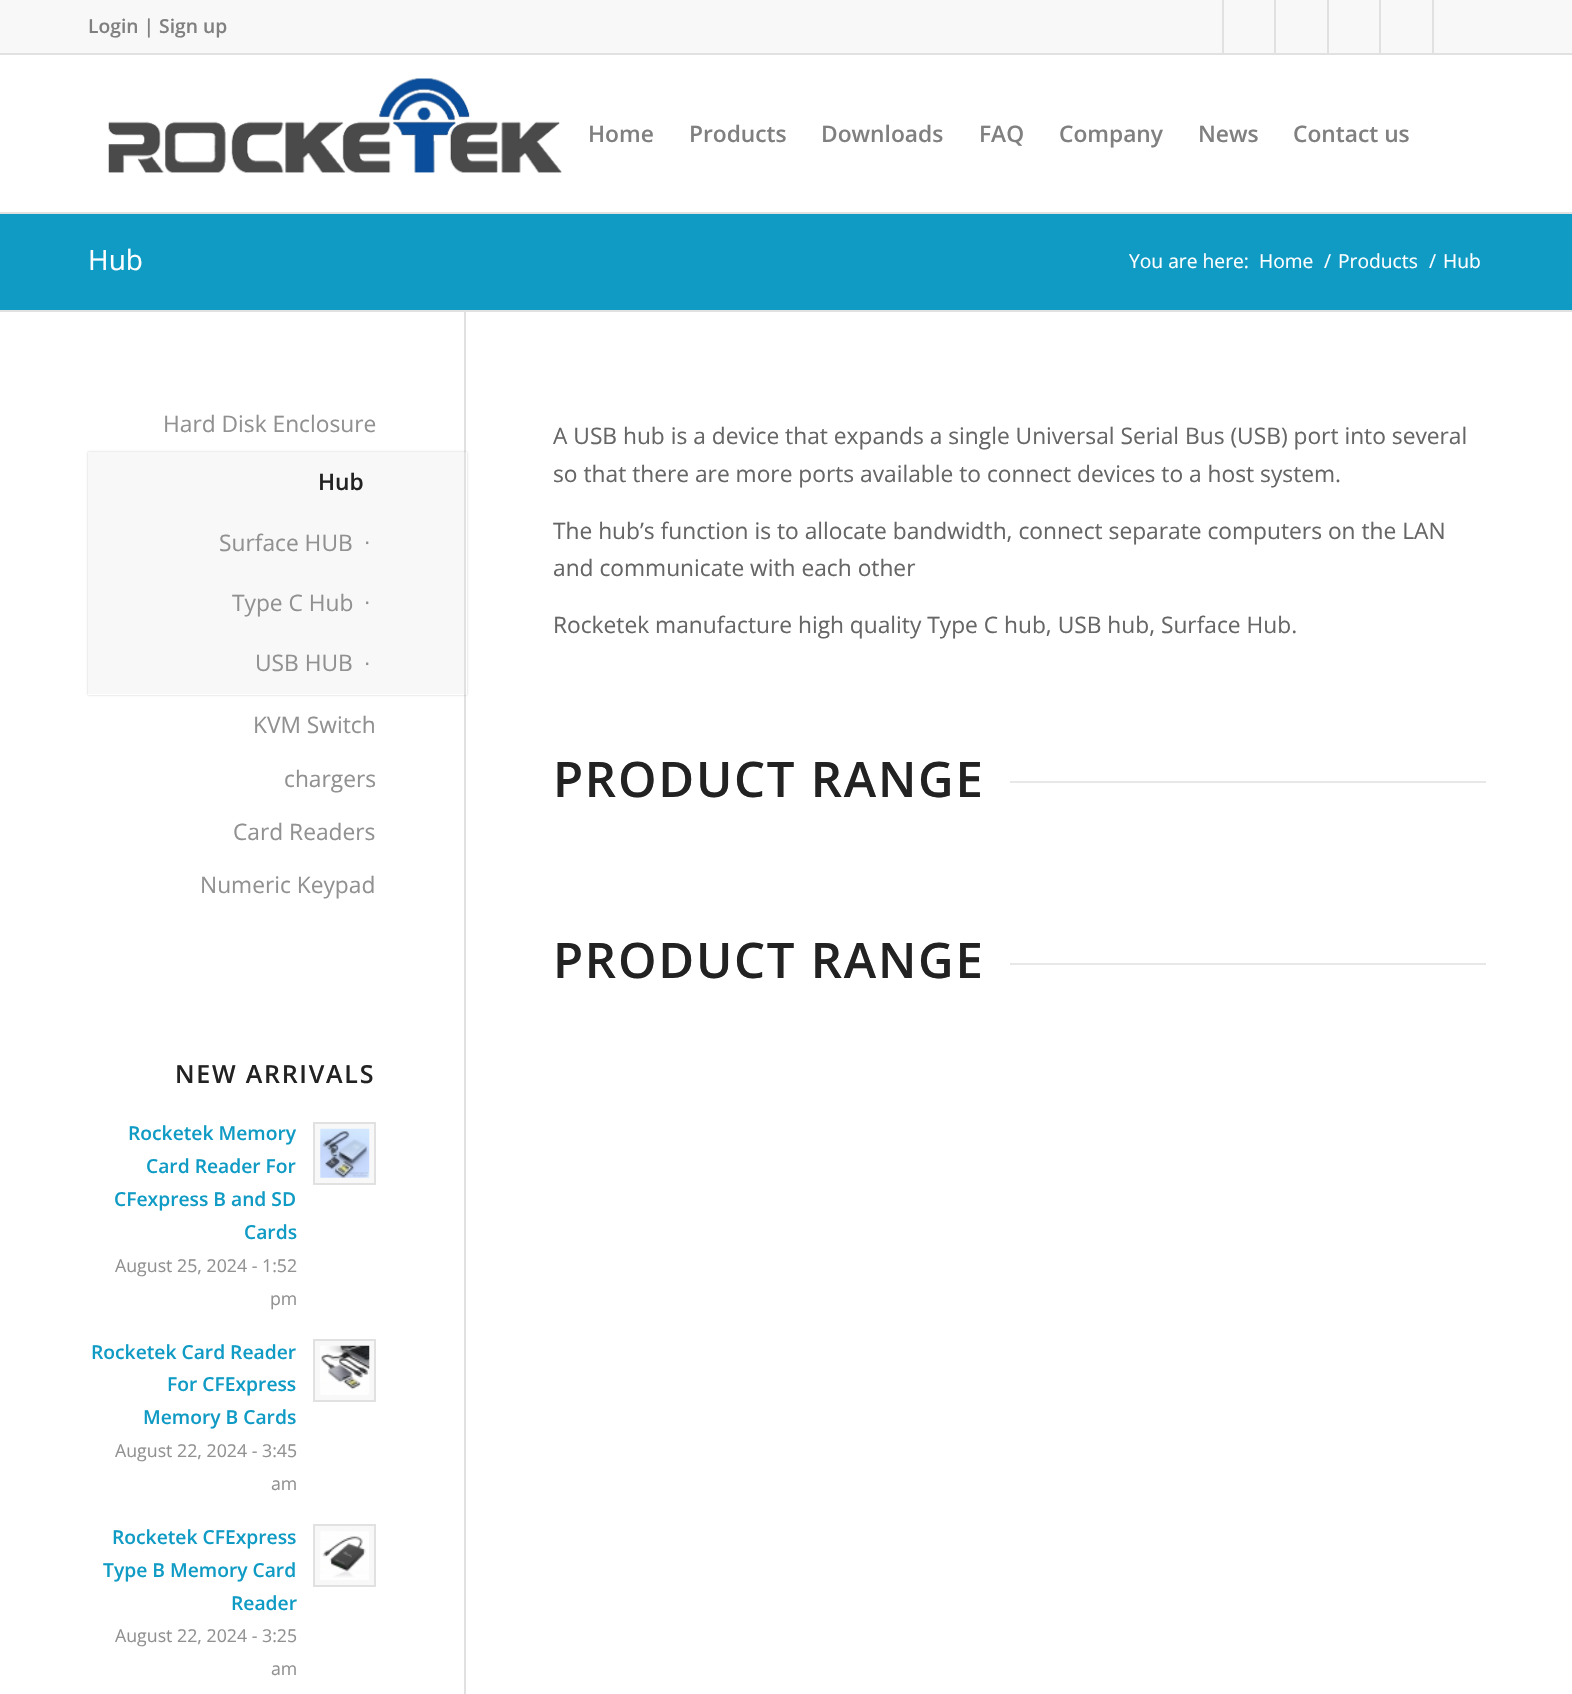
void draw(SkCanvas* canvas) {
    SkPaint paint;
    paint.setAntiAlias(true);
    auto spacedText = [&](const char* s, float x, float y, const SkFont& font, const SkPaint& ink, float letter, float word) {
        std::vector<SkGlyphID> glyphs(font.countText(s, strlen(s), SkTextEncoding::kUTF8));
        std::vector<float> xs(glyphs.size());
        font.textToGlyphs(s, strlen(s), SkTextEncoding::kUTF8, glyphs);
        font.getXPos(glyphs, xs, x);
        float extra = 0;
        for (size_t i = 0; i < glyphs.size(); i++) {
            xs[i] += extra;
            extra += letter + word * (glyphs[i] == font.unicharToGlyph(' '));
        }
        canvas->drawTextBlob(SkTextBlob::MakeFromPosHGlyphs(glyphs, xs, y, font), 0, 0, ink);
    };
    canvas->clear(0xFFFFFFFF);
    paint.setColor(0xFFF8F8F8);
    canvas->drawRect(SkRect::MakeXYWH(0, 0, 1572, 53), paint);
    paint.setColor(0xFFE1E1E1);
    canvas->drawRect(SkRect::MakeXYWH(0, 53, 1572, 2), paint);
    SkFont font1(fontMgr->matchFamilyStyle("Open Sans", SkFontStyle(600, SkFontStyle::kNormal_Width, SkFontStyle::kUpright_Slant)), 19.25f);
    font1.setSubpixel(true);
    paint.setColor(0xFF808080);
    canvas->drawString("Login | Sign up", 88, 33, font1, paint);
    paint.setColor(0xFFE1E1E1);
    canvas->drawRect(SkRect::MakeXYWH(1222, 0, 2, 53), paint);
    canvas->drawRect(SkRect::MakeXYWH(1274, 0, 2, 53), paint);
    canvas->drawRect(SkRect::MakeXYWH(1327, 0, 2, 53), paint);
    canvas->drawRect(SkRect::MakeXYWH(1379, 0, 2, 53), paint);
    canvas->drawRect(SkRect::MakeXYWH(1432, 0, 2, 53), paint);
    canvas->drawRect(SkRect::MakeXYWH(0, 212, 1572, 2), paint);
    canvas->drawImageRect(SkImages::DeferredFromEncodedData(SkData::MakeFromFileName("img1.png")), SkRect::MakeXYWH(108, 78, 454, 95), SkSamplingOptions());
    SkFont font2(fontMgr->matchFamilyStyle("Open Sans", SkFontStyle(600, SkFontStyle::kNormal_Width, SkFontStyle::kUpright_Slant)), 22.75f);
    font2.setSubpixel(true);
    paint.setColor(0xFF808080);
    canvas->drawString("Home", 588, 142, font2, paint);
    canvas->drawString("Products", 689, 142, font2, paint);
    canvas->drawString("Downloads", 821, 142, font2, paint);
    canvas->drawString("FAQ", 979, 142, font2, paint);
    canvas->drawString("Company", 1059, 142, font2, paint);
    canvas->drawString("News", 1198, 142, font2, paint);
    canvas->drawString("Contact us", 1293, 142, font2, paint);
    paint.setColor(0xFF109BC5);
    canvas->drawRect(SkRect::MakeXYWH(0, 214, 1572, 96), paint);
    SkFont font3(fontMgr->matchFamilyStyle("Open Sans", SkFontStyle::Normal()), 28);
    font3.setSubpixel(true);
    paint.setColor(0xFFFFFFFF);
    canvas->drawString("Hub", 88, 270, font3, paint);
    SkFont font4(fontMgr->matchFamilyStyle("Open Sans", SkFontStyle::Normal()), 19.25f);
    font4.setSubpixel(true);
    canvas->drawString("You are here:", 1129, 268, font4, paint);
    canvas->drawString("Home", 1259, 268, font4, paint);
    canvas->drawString("/", 1324, 268, font4, paint);
    canvas->drawString("Products", 1338, 268, font4, paint);
    canvas->drawString("/", 1429, 268, font4, paint);
    canvas->drawString("Hub", 1443, 268, font4, paint);
    paint.setColor(0xFFE1E1E1);
    canvas->drawRect(SkRect::MakeXYWH(0, 310, 1572, 2), paint);
    canvas->drawRect(SkRect::MakeXYWH(464, 312, 2, 1382), paint);
    SkFont font5(fontMgr->matchFamilyStyle("Open Sans", SkFontStyle::Normal()), 22.75f);
    font5.setSubpixel(true);
    paint.setColor(0xFF919191);
    canvas->drawString("Hard Disk Enclosure", 163, 432, font5, paint);
    canvas->save();
    canvas->clipPath(SkPathBuilder(SkPathFillType::kEvenOdd).moveTo(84, 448).lineTo(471, 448).lineTo(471, 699).lineTo(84, 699).close().moveTo(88, 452).lineTo(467, 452).lineTo(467, 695).lineTo(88, 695).close().detach(), true);
    paint.setColor(0x33000000);
    paint.setMaskFilter(SkMaskFilter::MakeBlur(kNormal_SkBlurStyle, 1));
    canvas->drawRect(SkRect::MakeXYWH(88, 452, 379, 243), paint);
    paint.setMaskFilter(nullptr);
    canvas->restore();
    paint.setColor(0xFFF8F8F8);
    canvas->drawRect(SkRect::MakeXYWH(88, 452, 376, 242), paint);
    paint.setColor(0xFF222222);
    canvas->drawString("Hub", 318, 490, font2, paint);
    paint.setColor(0xFF919191);
    canvas->drawString("Surface HUB", 219, 551, font5, paint);
    SkFont font6(fontMgr->matchFamilyStyle("Liberation Sans", SkFontStyle::Normal()), 22.75f);
    font6.setSubpixel(true);
    canvas->drawString("∙", 364, 549, font6, paint);
    canvas->drawString("Type C Hub", 232, 611, font5, paint);
    canvas->drawString("∙", 364, 609, font6, paint);
    canvas->drawString("USB HUB", 255, 671, font5, paint);
    canvas->drawString("∙", 364, 670, font6, paint);
    canvas->drawString("KVM Switch", 253, 733, font5, paint);
    canvas->drawString("chargers", 284, 787, font5, paint);
    canvas->drawString("Card Readers", 233, 840, font5, paint);
    canvas->drawString("Numeric Keypad", 200, 893, font5, paint);
    SkFont font7(fontMgr->matchFamilyStyle("Open Sans", SkFontStyle(600, SkFontStyle::kNormal_Width, SkFontStyle::kUpright_Slant)), 25);
    font7.setSubpixel(true);
    paint.setColor(0xFF222222);
    spacedText("NEW ARRIVALS", 175, 1083, font7, paint, 1.75f, 0);
    paint.setColor(0xFF109BC5);
    canvas->drawString("Rocketek Memory", 128, 1140, font1, paint);
    canvas->drawString("Card Reader For", 146, 1173, font1, paint);
    canvas->drawString("CFexpress B and SD", 114, 1206, font1, paint);
    canvas->drawString("Cards", 244, 1239, font1, paint);
    SkFont font8(fontMgr->matchFamilyStyle("Open Sans", SkFontStyle::Normal()), 17.75f);
    font8.setSubpixel(true);
    paint.setColor(0xFF919191);
    canvas->drawString("August 25, 2024 - 1:52", 115, 1272, font8, paint);
    canvas->drawString("pm", 270, 1305, font8, paint);
    paint.setColor(0xFFF8F8F8);
    canvas->drawRect(SkRect::MakeXYWH(314, 1123, 61, 61), paint);
    paint.setStyle(SkPaint::kStroke_Style);
    paint.setStrokeWidth(2);
    paint.setColor(0xFFE1E1E1);
    canvas->drawRect(SkRect::MakeXYWH(314, 1123, 61, 61), paint);
    canvas->drawImageRect(SkImages::DeferredFromEncodedData(SkData::MakeFromFileName("img2.png")), SkRect::MakeXYWH(320, 1128, 50, 50), SkSamplingOptions());
    paint.setStyle(SkPaint::kFill_Style);
    paint.setColor(0xFF109BC5);
    canvas->drawString("Rocketek Card Reader", 91, 1359, font1, paint);
    canvas->drawString("For CFExpress", 167, 1391, font1, paint);
    canvas->drawString("Memory B Cards", 143, 1424, font1, paint);
    paint.setColor(0xFF919191);
    canvas->drawString("August 22, 2024 - 3:45", 115, 1457, font8, paint);
    canvas->drawString("am", 271, 1490, font8, paint);
    paint.setColor(0xFFF8F8F8);
    canvas->drawRect(SkRect::MakeXYWH(314, 1340, 61, 61), paint);
    paint.setStyle(SkPaint::kStroke_Style);
    paint.setColor(0xFFE1E1E1);
    canvas->drawRect(SkRect::MakeXYWH(314, 1340, 61, 61), paint);
    canvas->drawImageRect(SkImages::DeferredFromEncodedData(SkData::MakeFromFileName("img3.png")), SkRect::MakeXYWH(320, 1345, 50, 50), SkSamplingOptions());
    paint.setStyle(SkPaint::kFill_Style);
    paint.setColor(0xFF109BC5);
    canvas->drawString("Rocketek CFExpress", 112, 1544, font1, paint);
    canvas->drawString("Type B Memory Card", 103, 1577, font1, paint);
    canvas->drawString("Reader", 231, 1610, font1, paint);
    paint.setColor(0xFF919191);
    canvas->drawString("August 22, 2024 - 3:25", 115, 1642, font8, paint);
    canvas->drawString("am", 271, 1675, font8, paint);
    paint.setColor(0xFFF8F8F8);
    canvas->drawRect(SkRect::MakeXYWH(314, 1525, 61, 61), paint);
    paint.setStyle(SkPaint::kStroke_Style);
    paint.setColor(0xFFE1E1E1);
    canvas->drawRect(SkRect::MakeXYWH(314, 1525, 61, 61), paint);
    canvas->drawImageRect(SkImages::DeferredFromEncodedData(SkData::MakeFromFileName("img4.png")), SkRect::MakeXYWH(320, 1531, 49, 49), SkSamplingOptions());
    paint.setStyle(SkPaint::kFill_Style);
    paint.setColor(0xFF666666);
    canvas->drawString("A USB hub is a device that expands a single Universal Serial Bus (USB) port into several", 553, 444, font5, paint);
    canvas->drawString("so that there are more ports available to connect devices to a host system.", 553, 482, font5, paint);
    canvas->drawString("The hub’s function is to allocate bandwidth, connect separate computers on the LAN", 553, 539, font5, paint);
    canvas->drawString("and communicate with each other", 553, 576, font5, paint);
    canvas->drawString("Rocketek manufacture high quality Type C hub, USB hub, Surface Hub.", 553, 633, font5, paint);
    SkFont font9(fontMgr->matchFamilyStyle("Open Sans", SkFontStyle(600, SkFontStyle::kNormal_Width, SkFontStyle::kUpright_Slant)), 49);
    font9.setSubpixel(true);
    paint.setColor(0xFF222222);
    spacedText("PRODUCT RANGE", 553, 797, font9, paint, 1.75f, 0);
    paint.setColor(0xFFE8E8E8);
    canvas->drawRect(SkRect::MakeXYWH(1010, 781, 476, 2), paint);
    paint.setColor(0xFF222222);
    spacedText("PRODUCT RANGE", 553, 978, font9, paint, 1.75f, 0);
    paint.setColor(0xFFE8E8E8);
    canvas->drawRect(SkRect::MakeXYWH(1010, 963, 476, 2), paint);
}
